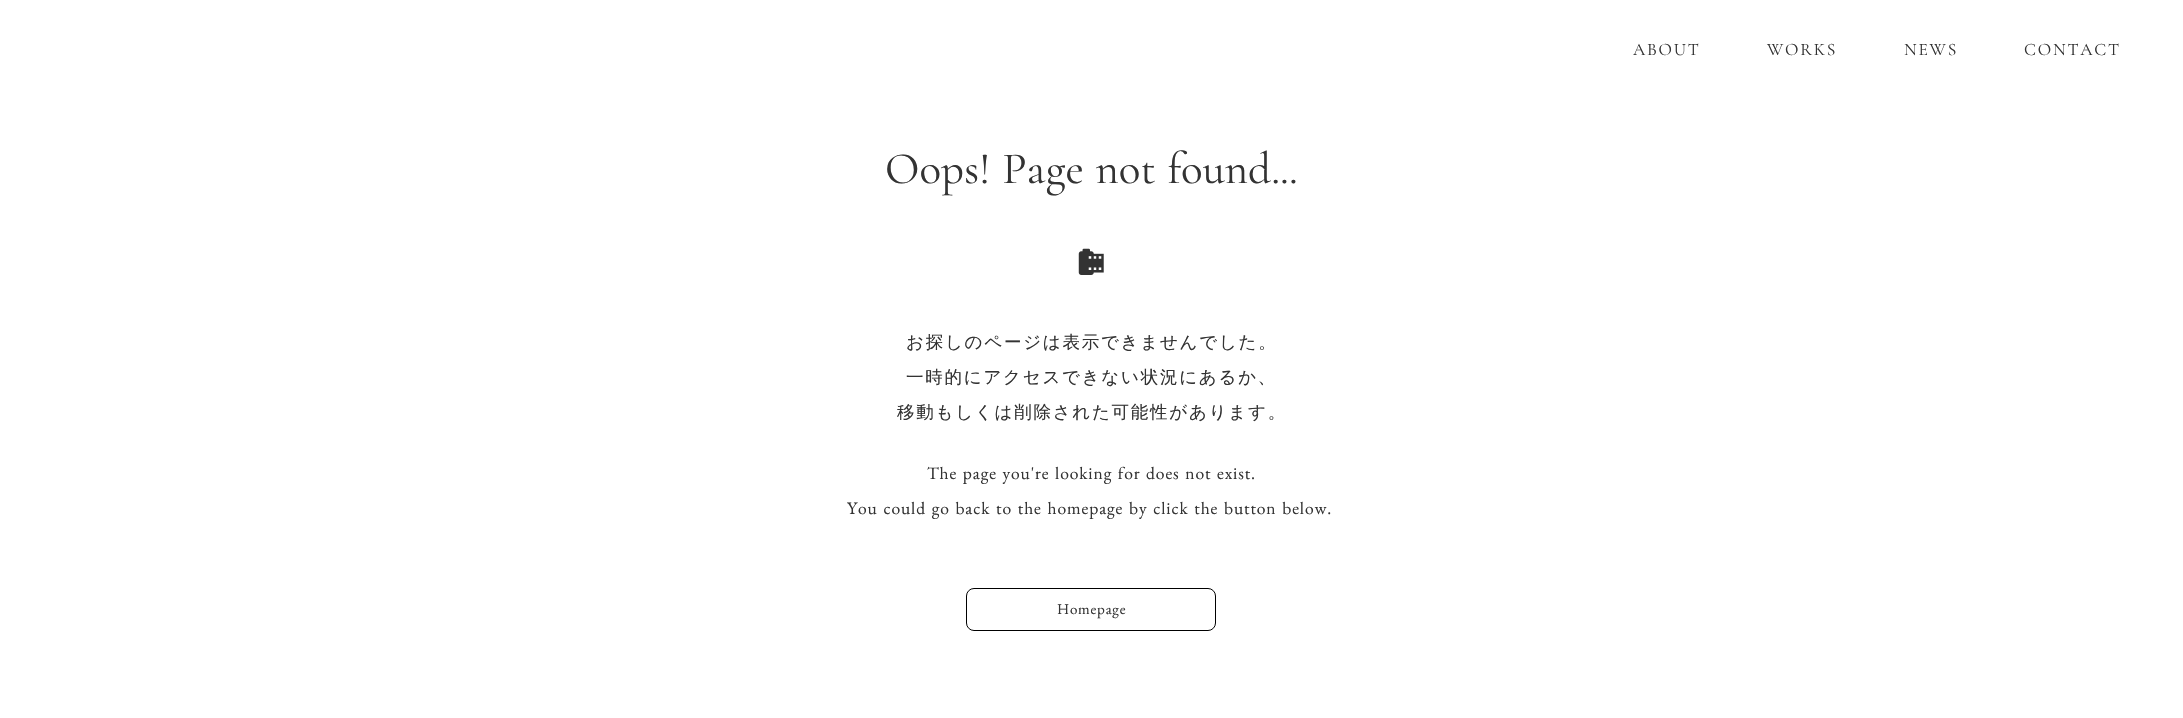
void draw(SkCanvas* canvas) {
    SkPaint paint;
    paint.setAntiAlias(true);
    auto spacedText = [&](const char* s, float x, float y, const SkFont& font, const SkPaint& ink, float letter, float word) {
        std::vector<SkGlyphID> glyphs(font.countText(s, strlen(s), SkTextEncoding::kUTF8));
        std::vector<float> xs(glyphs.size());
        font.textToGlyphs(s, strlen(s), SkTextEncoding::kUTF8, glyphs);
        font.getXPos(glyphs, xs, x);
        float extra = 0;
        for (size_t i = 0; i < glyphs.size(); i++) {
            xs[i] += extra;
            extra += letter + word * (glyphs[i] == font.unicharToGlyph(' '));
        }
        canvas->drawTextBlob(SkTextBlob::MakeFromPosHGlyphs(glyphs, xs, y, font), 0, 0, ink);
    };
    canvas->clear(0xFFFFFFFF);
    SkFont font1(fontMgr->matchFamilyStyle("Cormorant Garamond", SkFontStyle::Normal()), 17.5f);
    font1.setSubpixel(true);
    paint.setColor(0xFF333333);
    spacedText("ABOUT", 1633, 55, font1, paint, 1.75f, 0);
    spacedText("WORKS", 1767, 55, font1, paint, 1.75f, 0);
    spacedText("NEWS", 1904, 55, font1, paint, 1.75f, 0);
    spacedText("CONTACT", 2024, 55, font1, paint, 1.75f, 0);
    SkFont font2(fontMgr->matchFamilyStyle("Cormorant Garamond", SkFontStyle::Normal()), 45);
    font2.setSubpixel(true);
    spacedText("Oops! Page not found...", 885, 183, font2, paint, 0, 1.25f);
    canvas->drawImageRect(SkImages::DeferredFromEncodedData(SkData::MakeFromFileName("img1.png")), SkRect::MakeXYWH(1078, 248, 26, 27), SkSamplingOptions());
    SkFont font3(fontMgr->matchFamilyStyle("WenQuanYi Zen Hei", SkFontStyle(500, SkFontStyle::kNormal_Width, SkFontStyle::kUpright_Slant)), 17.5f);
    font3.setSubpixel(true);
    spacedText("お探しのページは表示できませんでした。", 906, 348, font3, paint, 1.75f, 0);
    spacedText("一時的にアクセスできない状況にあるか、", 906, 383, font3, paint, 1.75f, 0);
    spacedText("移動もしくは削除された可能性があります。", 897, 418, font3, paint, 1.75f, 0);
    SkFont font4(fontMgr->matchFamilyStyle("EB Garamond", SkFontStyle::Normal()), 17.5f);
    font4.setSubpixel(true);
    spacedText("The page you're looking for does not exist.", 927, 479, font4, paint, 0.88f, 1.25f);
    spacedText("You could go back to the homepage by click the button below.", 847, 514, font4, paint, 0.88f, 1.4f);
    paint.setStyle(SkPaint::kStroke_Style);
    paint.setStrokeWidth(1);
    paint.setColor(0xFF000000);
    canvas->drawRoundRect(SkRect::MakeXYWH(966.5f, 588.5f, 249, 42), 7.5f, 7.5f, paint);
    SkFont font5(fontMgr->matchFamilyStyle("EB Garamond", SkFontStyle::Normal()), 15);
    font5.setSubpixel(true);
    paint.setStyle(SkPaint::kFill_Style);
    paint.setColor(0xFF333333);
    spacedText("Homepage", 1057, 614, font5, paint, 0.75f, 0);
}
